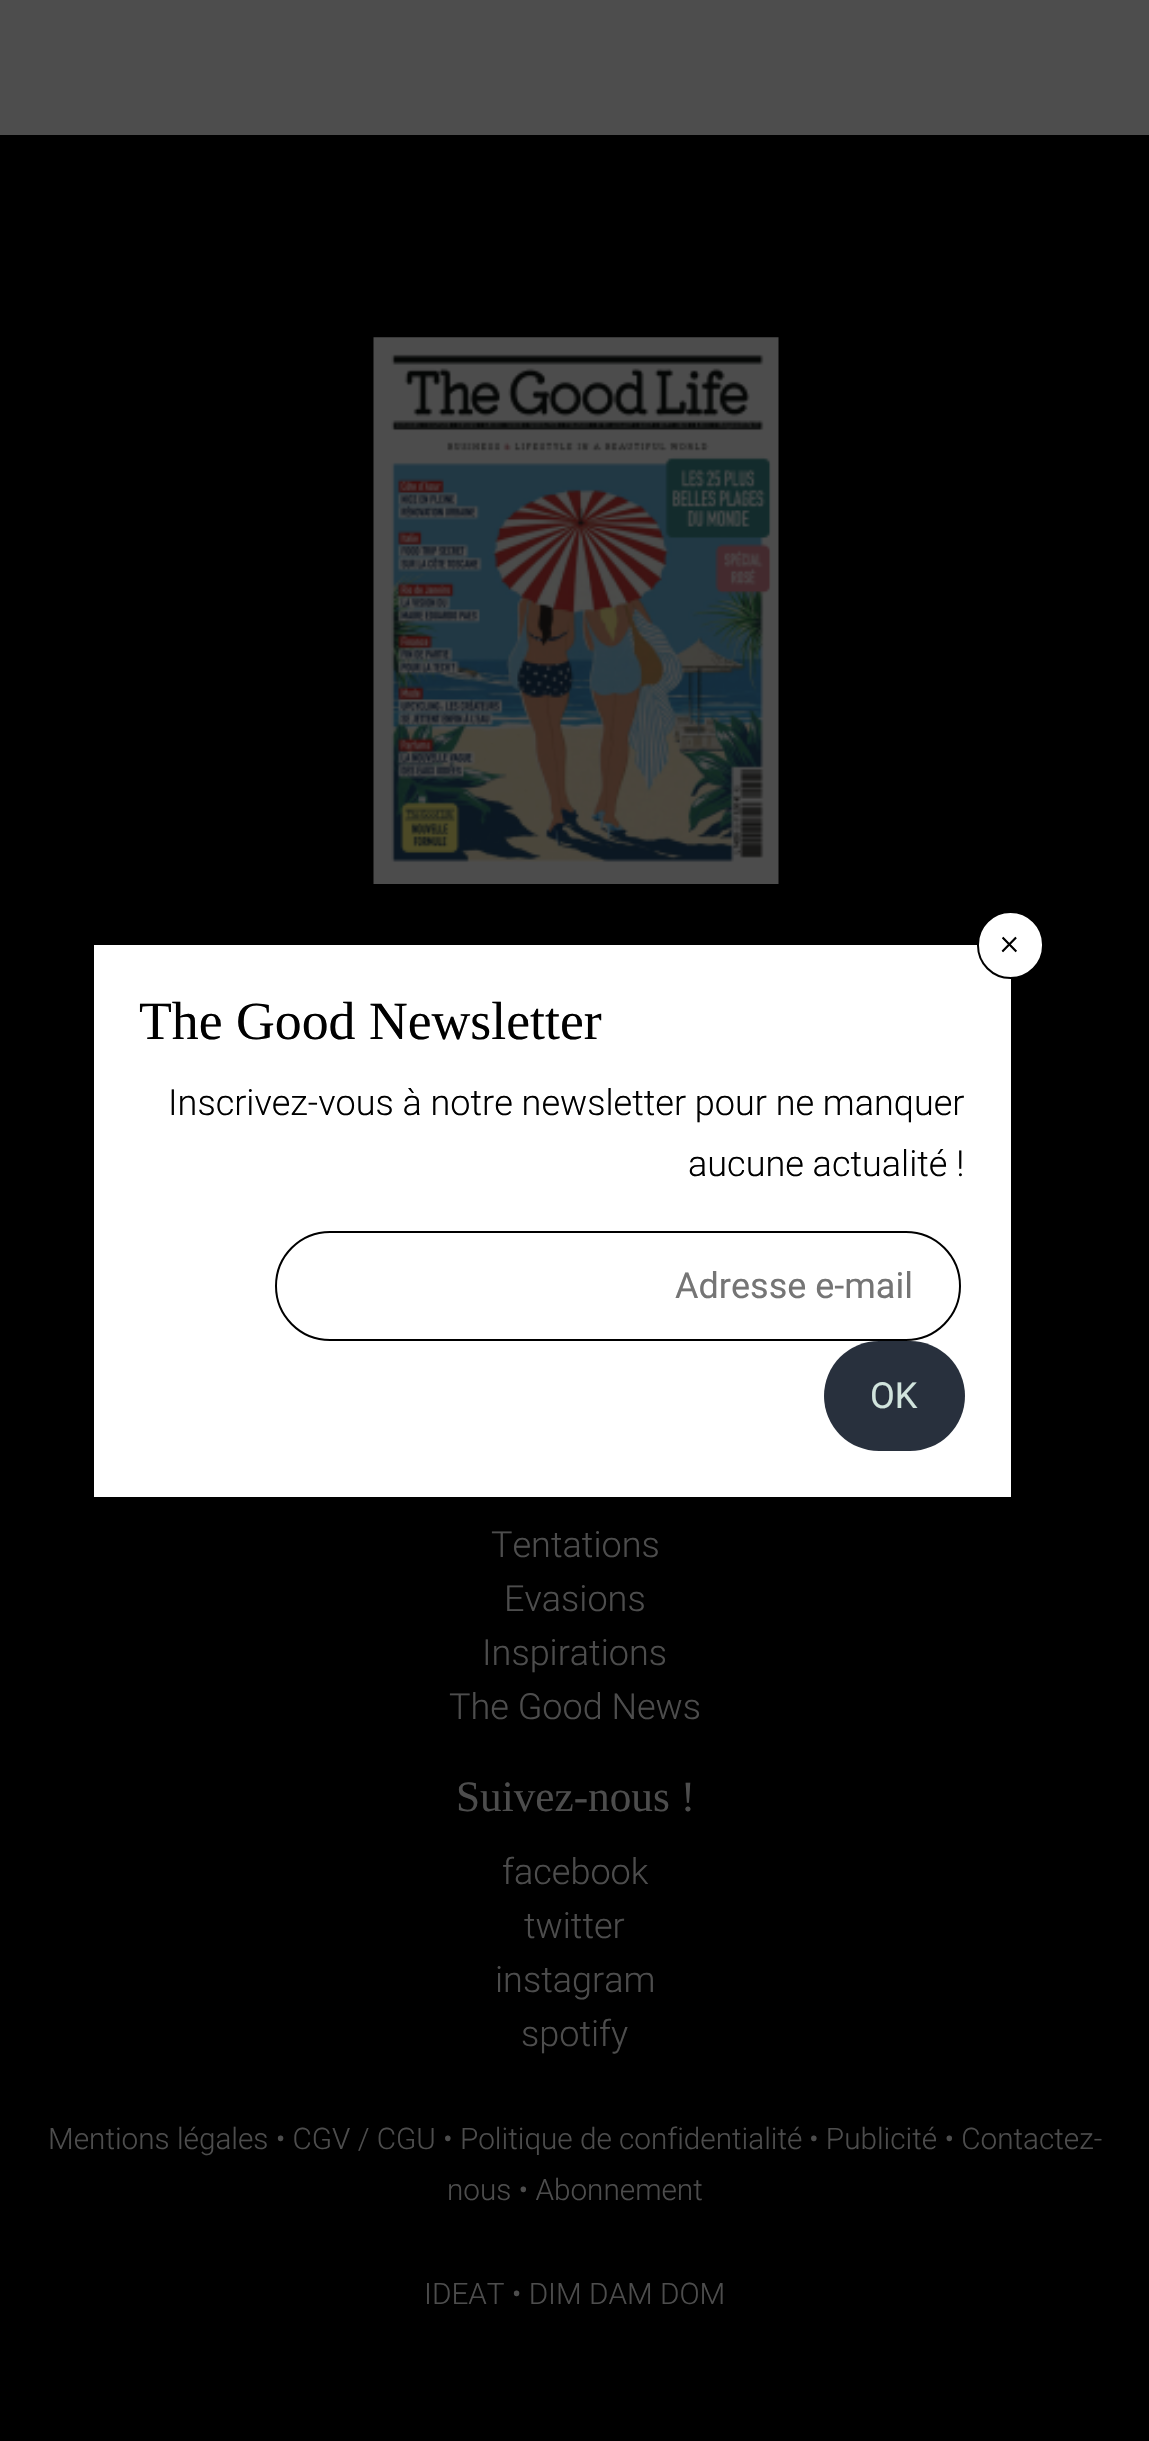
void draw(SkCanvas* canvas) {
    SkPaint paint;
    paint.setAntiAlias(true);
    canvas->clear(0xFF4D4D4D);
    paint.setColor(0xFF000000);
    canvas->drawRect(SkRect::MakeXYWH(0, 135, 1149, 2306), paint);
    paint.setColor(0xFFFFFFFF);
    canvas->drawRect(SkRect::MakeXYWH(94, 945, 917, 552), paint);
    canvas->drawRoundRect(SkRect::MakeXYWH(978, 912, 65, 66), 32.5f, 32.5f, paint);
    paint.setStyle(SkPaint::kStroke_Style);
    paint.setStrokeWidth(2);
    paint.setColor(0xFF000000);
    canvas->drawRoundRect(SkRect::MakeXYWH(978, 912, 65, 66), 32.5f, 32.5f, paint);
    SkFont font1(fontMgr->matchFamilyStyle("Roboto", SkFontStyle(300, SkFontStyle::kNormal_Width, SkFontStyle::kUpright_Slant)), 36);
    font1.setSubpixel(true);
    paint.setStyle(SkPaint::kFill_Style);
    canvas->drawString("×", 1000, 954, font1, paint);
    SkFont font2(fontMgr->matchFamilyStyle("Liberation Serif", SkFontStyle::Normal()), 53.75f);
    font2.setSubpixel(true);
    canvas->drawString("The Good Newsletter", 139, 1039, font2, paint);
    canvas->drawString("Inscrivez-vous à notre newsletter pour ne manquer", 168, 1115, font1, paint);
    canvas->drawString("aucune actualité !", 688, 1176, font1, paint);
    paint.setStyle(SkPaint::kStroke_Style);
    canvas->drawRoundRect(SkRect::MakeXYWH(276, 1232, 684, 108), 54, 54, paint);
    SkFont font3(fontMgr->matchFamilyStyle("Roboto", SkFontStyle::Normal()), 36);
    font3.setSubpixel(true);
    paint.setStyle(SkPaint::kFill_Style);
    paint.setColor(0xFF757575);
    canvas->drawString("Adresse e-mail", 675, 1298, font3, paint);
    paint.setColor(0xFF28303D);
    canvas->drawRoundRect(SkRect::MakeXYWH(824, 1341, 141, 110), 55, 55, paint);
    paint.setColor(0xFFD1E4DD);
    canvas->drawString("OK", 870, 1408, font3, paint);
    canvas->drawImageRect(SkImages::DeferredFromEncodedData(SkData::MakeFromFileName("img1.png")), SkRect::MakeXYWH(373, 337, 406, 547), SkSamplingOptions());
    paint.setColor(0xFF4D4D4D);
    canvas->drawString("Tentations", 491, 1557, font1, paint);
    canvas->drawString("Evasions", 504, 1611, font1, paint);
    canvas->drawString("Inspirations", 482, 1665, font1, paint);
    canvas->drawString("The Good News", 449, 1719, font1, paint);
    SkFont font4(fontMgr->matchFamilyStyle("Liberation Serif", SkFontStyle::Normal()), 43.25f);
    font4.setSubpixel(true);
    canvas->drawString("Suivez-nous !", 456, 1811, font4, paint);
    canvas->drawString("facebook", 502, 1884, font1, paint);
    canvas->drawString("twitter", 524, 1938, font1, paint);
    canvas->drawString("instagram", 495, 1992, font1, paint);
    canvas->drawString("spotify", 521, 2046, font1, paint);
    SkFont font5(fontMgr->matchFamilyStyle("Roboto", SkFontStyle(300, SkFontStyle::kNormal_Width, SkFontStyle::kUpright_Slant)), 29.7f);
    font5.setSubpixel(true);
    canvas->drawString("Mentions légales • CGV / CGU • Politique de confidentialité", 48, 2149, font5, paint);
    canvas->drawString("• Publicité • Contactez-", 809, 2149, font5, paint);
    canvas->drawString("nous • Abonnement", 447, 2200, font5, paint);
    canvas->drawString("IDEAT • DIM DAM DOM", 424, 2304, font5, paint);
}
